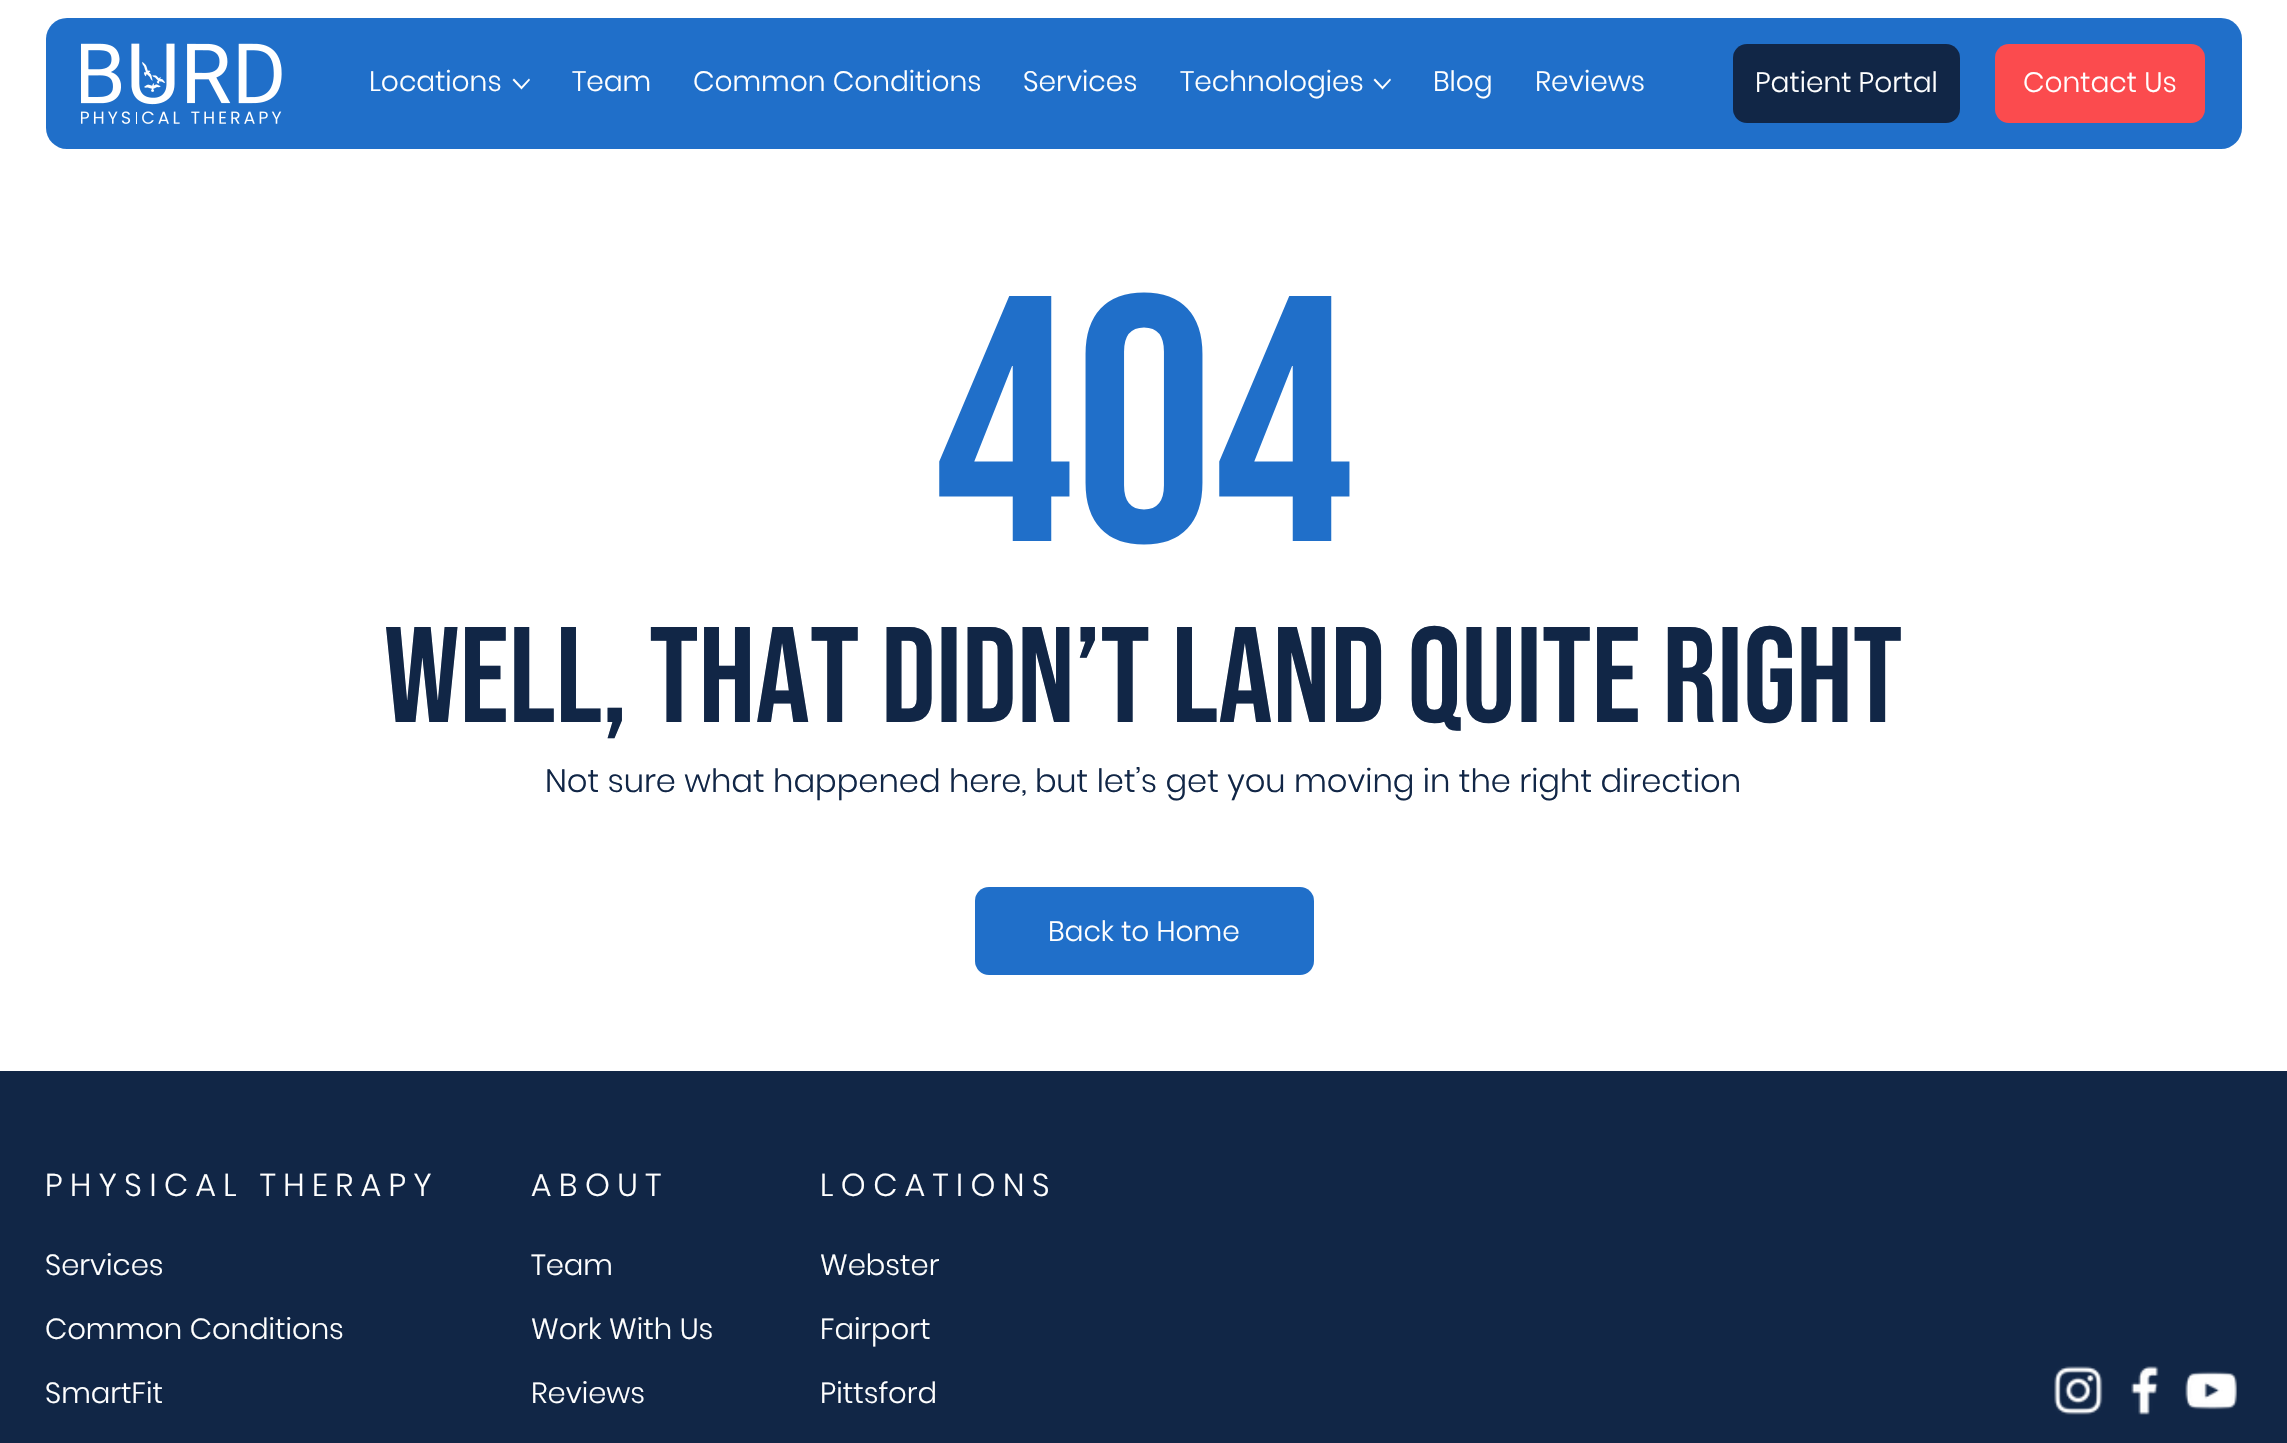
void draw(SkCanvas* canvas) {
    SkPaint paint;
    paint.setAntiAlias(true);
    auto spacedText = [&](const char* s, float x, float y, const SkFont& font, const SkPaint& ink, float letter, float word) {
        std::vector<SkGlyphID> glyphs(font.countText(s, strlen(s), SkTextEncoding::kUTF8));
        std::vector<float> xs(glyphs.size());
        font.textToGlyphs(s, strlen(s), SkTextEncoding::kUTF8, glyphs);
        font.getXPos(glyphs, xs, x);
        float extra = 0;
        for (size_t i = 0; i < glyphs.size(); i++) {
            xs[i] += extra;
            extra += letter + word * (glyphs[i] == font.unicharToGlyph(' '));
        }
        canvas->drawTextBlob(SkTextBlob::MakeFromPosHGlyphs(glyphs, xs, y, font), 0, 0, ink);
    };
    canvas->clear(0xFFFFFFFF);
    paint.setColor(0xFF206FC9);
    canvas->drawRoundRect(SkRect::MakeXYWH(46, 18, 2196, 131), 21, 21, paint);
    canvas->drawImageRect(SkImages::DeferredFromEncodedData(SkData::MakeFromFileName("img1.png")), SkRect::MakeXYWH(81, 43, 201, 81), SkSamplingOptions());
    SkFont font1(fontMgr->matchFamilyStyle("Poppins", SkFontStyle(300, SkFontStyle::kNormal_Width, SkFontStyle::kUpright_Slant)), 28);
    font1.setSubpixel(true);
    paint.setColor(0xFFFFFFFF);
    canvas->drawString("Locations", 369, 91, font1, paint);
    canvas->drawPath(SkPathBuilder().moveTo(521.5f, 89.5f).lineTo(530, 80).lineTo(529, 78.5f).lineTo(521.5f, 86.5f).lineTo(514, 78.5f).lineTo(512.5f, 80).close().detach(), paint);
    canvas->drawString("Team", 572, 91, font1, paint);
    canvas->drawString("Common Conditions", 693, 91, font1, paint);
    canvas->drawString("Services", 1023, 91, font1, paint);
    canvas->drawString("Technologies", 1180, 91, font1, paint);
    canvas->drawPath(SkPathBuilder().moveTo(1382.5f, 89.5f).lineTo(1391, 80).lineTo(1390, 78.5f).lineTo(1382.5f, 86.5f).lineTo(1375, 78.5f).lineTo(1373.5f, 80).close().detach(), paint);
    canvas->drawString("Blog", 1433, 91, font1, paint);
    canvas->drawString("Reviews", 1535, 91, font1, paint);
    paint.setColor(0xFF112646);
    canvas->drawRoundRect(SkRect::MakeXYWH(1733, 44, 227, 79), 14, 14, paint);
    paint.setColor(0xFFFFFFFF);
    canvas->drawString("Patient Portal", 1755, 92, font1, paint);
    paint.setColor(0xFFFB4B4E);
    canvas->drawRoundRect(SkRect::MakeXYWH(1995, 44, 210, 79), 14, 14, paint);
    paint.setColor(0xFFFFFFFF);
    canvas->drawString("Contact Us", 2023, 92, font1, paint);
    SkFont font2(fontMgr->matchFamilyStyle("Bebas Neue", SkFontStyle::Normal()), 350);
    font2.setSubpixel(true);
    paint.setColor(0xFF206FC9);
    canvas->drawString("404", 934, 541, font2, paint);
    SkFont font3(fontMgr->matchFamilyStyle("Bebas Neue", SkFontStyle::Normal()), 135.6f);
    font3.setSubpixel(true);
    paint.setColor(0xFF112646);
    canvas->drawString("Well, that didn’t land quite right", 384, 722, font3, paint);
    SkFont font4(fontMgr->matchFamilyStyle("Poppins", SkFontStyle(300, SkFontStyle::kNormal_Width, SkFontStyle::kUpright_Slant)), 32.15f);
    font4.setSubpixel(true);
    canvas->drawString("Not sure what happened here, but let’s get you moving in the right direction", 545, 792, font4, paint);
    paint.setColor(0xFF206FC9);
    canvas->drawRoundRect(SkRect::MakeXYWH(975, 887, 339, 88), 14, 14, paint);
    paint.setColor(0xFFFFFFFF);
    canvas->drawString("Back to Home", 1048, 941, font1, paint);
    paint.setColor(0xFF112646);
    canvas->drawRect(SkRect::MakeXYWH(0, 1071, 2287, 372), paint);
    SkFont font5(fontMgr->matchFamilyStyle("Poppins", SkFontStyle(300, SkFontStyle::kNormal_Width, SkFontStyle::kUpright_Slant)), 31.5f);
    font5.setSubpixel(true);
    paint.setColor(0xFFFFFFFF);
    spacedText("PHYSICAL THERAPY", 45, 1196, font5, paint, 7.5f, 0);
    SkFont font6(fontMgr->matchFamilyStyle("Poppins", SkFontStyle(300, SkFontStyle::kNormal_Width, SkFontStyle::kUpright_Slant)), 29);
    font6.setSubpixel(true);
    canvas->drawString("Services", 45, 1275, font6, paint);
    canvas->drawString("Common Conditions", 45, 1339, font6, paint);
    canvas->drawString("SmartFit", 45, 1403, font6, paint);
    spacedText("ABOUT", 531, 1196, font5, paint, 7.5f, 0);
    canvas->drawString("Team", 531, 1275, font6, paint);
    canvas->drawString("Work With Us", 531, 1339, font6, paint);
    canvas->drawString("Reviews", 531, 1403, font6, paint);
    spacedText("LOCATIONS", 820, 1196, font5, paint, 7.5f, 0);
    canvas->drawString("Webster", 820, 1275, font6, paint);
    canvas->drawString("Fairport", 820, 1339, font6, paint);
    canvas->drawString("Pittsford", 820, 1403, font6, paint);
    canvas->drawImageRect(SkImages::DeferredFromEncodedData(SkData::MakeFromFileName("img2.png")), SkRect::MakeXYWH(2054, 1366, 49, 49), SkSamplingOptions());
    canvas->drawImageRect(SkImages::DeferredFromEncodedData(SkData::MakeFromFileName("img3.png")), SkRect::MakeXYWH(2131, 1366, 28, 49), SkSamplingOptions());
    canvas->drawImageRect(SkImages::DeferredFromEncodedData(SkData::MakeFromFileName("img4.png")), SkRect::MakeXYWH(2185, 1371, 52, 39), SkSamplingOptions());
}
